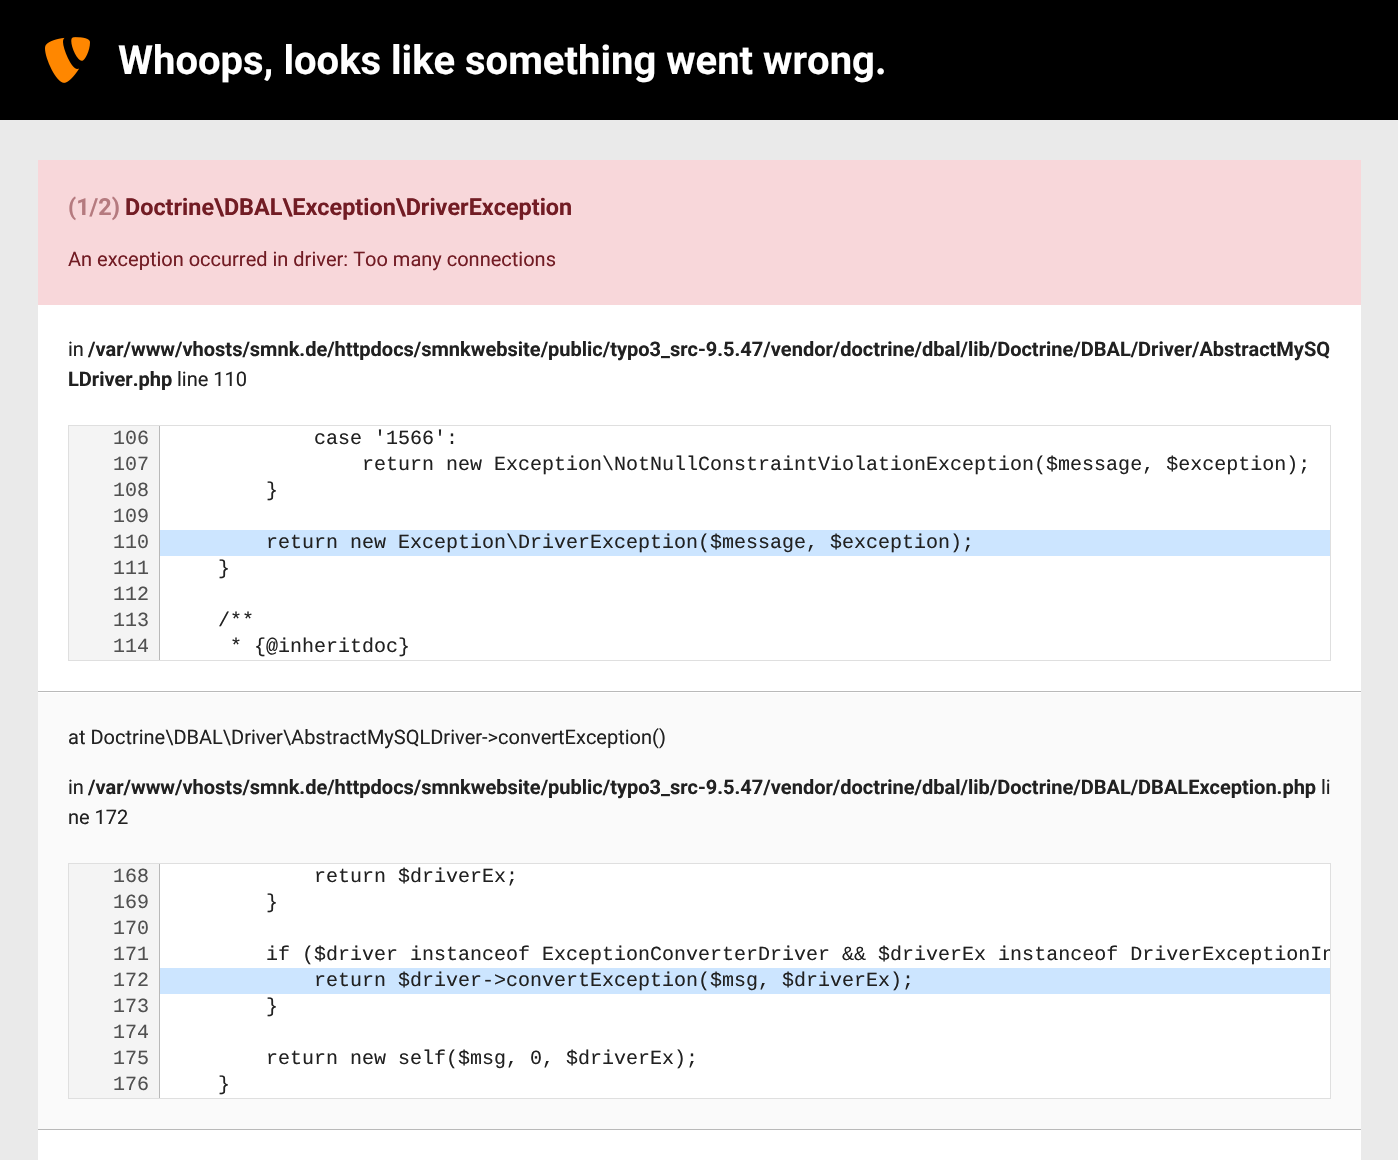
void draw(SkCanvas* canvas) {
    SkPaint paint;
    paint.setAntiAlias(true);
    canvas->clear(0xFFEAEAEA);
    paint.setColor(0xFF000000);
    canvas->drawRect(SkRect::MakeXYWH(0, 0, 1398, 120), paint);
    canvas->drawImageRect(SkImages::DeferredFromEncodedData(SkData::MakeFromFileName("img1.png")), SkRect::MakeXYWH(45, 37, 45, 46), SkSamplingOptions());
    SkFont font1(fontMgr->matchFamilyStyle("Roboto", SkFontStyle::Bold()), 40);
    font1.setSubpixel(true);
    paint.setColor(0xFFFFFFFF);
    canvas->drawString("Whoops, looks like something went wrong.", 118, 74, font1, paint);
    canvas->drawRect(SkRect::MakeXYWH(38, 305, 1323, 855), paint);
    paint.setColor(0xFFF8D7DA);
    canvas->drawRect(SkRect::MakeXYWH(38, 160, 1323, 145), paint);
    SkFont font2(fontMgr->matchFamilyStyle("Roboto", SkFontStyle::Bold()), 23.4f);
    font2.setSubpixel(true);
    paint.setColor(0xFFB57A7F);
    canvas->drawString("(1/2)", 68, 215, font2, paint);
    paint.setColor(0xFF721C24);
    canvas->drawString("Doctrine\\DBAL\\Exception\\DriverException", 125, 215, font2, paint);
    SkFont font3(fontMgr->matchFamilyStyle("Roboto", SkFontStyle::Normal()), 20);
    font3.setSubpixel(true);
    canvas->drawString("An exception occurred in driver: Too many connections", 68, 266, font3, paint);
    paint.setColor(0xFFB9B9B9);
    canvas->drawRect(SkRect::MakeXYWH(38, 691, 1323, 1), paint);
    paint.setColor(0xFF212121);
    canvas->drawString("in", 68, 356, font3, paint);
    SkFont font4(fontMgr->matchFamilyStyle("Roboto", SkFontStyle::Bold()), 20);
    font4.setSubpixel(true);
    canvas->drawString("/var/www/vhosts/smnk.de/httpdocs/smnkwebsite/public/typo3_src-9.5.47/vendor/doctrine/dbal/lib/Doctrine/DBAL/Driver/AbstractMySQ", 88, 356, font4, paint);
    canvas->drawString("LDriver.php", 68, 386, font4, paint);
    canvas->drawString("line 110", 177, 386, font3, paint);
    paint.setStyle(SkPaint::kStroke_Style);
    paint.setStrokeWidth(1);
    paint.setColor(0xFFDFDFDF);
    canvas->drawRect(SkRect::MakeXYWH(68.5f, 425.5f, 1262, 235), paint);
    paint.setStyle(SkPaint::kFill_Style);
    paint.setColor(0xFFF4F4F4);
    canvas->drawRect(SkRect::MakeXYWH(69, 426, 90, 234), paint);
    paint.setColor(0xFFB9B9B9);
    canvas->drawRect(SkRect::MakeXYWH(159, 426, 1, 234), paint);
    SkFont font5(fontMgr->matchFamilyStyle("Liberation Mono", SkFontStyle::Normal()), 20);
    font5.setSubpixel(true);
    paint.setColor(0xFF515151);
    canvas->drawString("106", 113, 444, font5, paint);
    paint.setColor(0xFF212121);
    canvas->drawString("case '1566':", 314, 444, font5, paint);
    paint.setColor(0xFF515151);
    canvas->drawString("107", 113, 470, font5, paint);
    paint.setColor(0xFF212121);
    canvas->drawString("return new Exception\\NotNullConstraintViolationException($message, $exception);", 362, 470, font5, paint);
    paint.setColor(0xFF515151);
    canvas->drawString("108", 113, 496, font5, paint);
    paint.setColor(0xFF212121);
    canvas->drawString("}", 266, 496, font5, paint);
    paint.setColor(0xFF515151);
    canvas->drawString("109", 113, 522, font5, paint);
    paint.setColor(0xFFCCE5FF);
    canvas->drawRect(SkRect::MakeXYWH(160, 530, 1170, 26), paint);
    paint.setColor(0xFF515151);
    canvas->drawString("110", 113, 548, font5, paint);
    paint.setColor(0xFF212121);
    canvas->drawString("return new Exception\\DriverException($message, $exception);", 266, 548, font5, paint);
    paint.setColor(0xFF515151);
    canvas->drawString("111", 113, 574, font5, paint);
    paint.setColor(0xFF212121);
    canvas->drawString("}", 218, 574, font5, paint);
    paint.setColor(0xFF515151);
    canvas->drawString("112", 113, 600, font5, paint);
    canvas->drawString("113", 113, 626, font5, paint);
    paint.setColor(0xFF212121);
    canvas->drawString("/**", 218, 626, font5, paint);
    paint.setColor(0xFF515151);
    canvas->drawString("114", 113, 652, font5, paint);
    paint.setColor(0xFF212121);
    canvas->drawString("* {@inheritdoc}", 230, 652, font5, paint);
    paint.setColor(0xFFFAFAFA);
    canvas->drawRect(SkRect::MakeXYWH(38, 693, 1323, 436), paint);
    paint.setColor(0xFFB9B9B9);
    canvas->drawRect(SkRect::MakeXYWH(38, 1129, 1323, 1), paint);
    paint.setColor(0xFF212121);
    canvas->drawString("at Doctrine\\DBAL\\Driver\\AbstractMySQLDriver->convertException()", 68, 744, font3, paint);
    canvas->drawString("in", 68, 794, font3, paint);
    canvas->drawString("/var/www/vhosts/smnk.de/httpdocs/smnkwebsite/public/typo3_src-9.5.47/vendor/doctrine/dbal/lib/Doctrine/DBAL/DBALException.php", 88, 794, font4, paint);
    canvas->drawString("li", 1321, 794, font3, paint);
    canvas->drawString("ne 172", 68, 824, font3, paint);
    paint.setColor(0xFFFFFFFF);
    canvas->drawRect(SkRect::MakeXYWH(160, 864, 1170, 234), paint);
    paint.setStyle(SkPaint::kStroke_Style);
    paint.setColor(0xFFDFDFDF);
    canvas->drawRect(SkRect::MakeXYWH(68.5f, 863.5f, 1262, 235), paint);
    paint.setStyle(SkPaint::kFill_Style);
    paint.setColor(0xFFF4F4F4);
    canvas->drawRect(SkRect::MakeXYWH(69, 864, 90, 234), paint);
    paint.setColor(0xFFB9B9B9);
    canvas->drawRect(SkRect::MakeXYWH(159, 864, 1, 234), paint);
    paint.setColor(0xFF515151);
    canvas->drawString("168", 113, 882, font5, paint);
    paint.setColor(0xFF212121);
    canvas->drawString("return $driverEx;", 314, 882, font5, paint);
    paint.setColor(0xFF515151);
    canvas->drawString("169", 113, 908, font5, paint);
    paint.setColor(0xFF212121);
    canvas->drawString("}", 266, 908, font5, paint);
    paint.setColor(0xFF515151);
    canvas->drawString("170", 113, 934, font5, paint);
    canvas->drawString("171", 113, 960, font5, paint);
    canvas->save();
    canvas->clipRect(SkRect::MakeXYWH(69, 864, 1261, 234));
    paint.setColor(0xFF212121);
    canvas->drawString("if ($driver instanceof ExceptionConverterDriver && $driverEx instanceof DriverExceptionIn", 266, 960, font5, paint);
    canvas->restore();
    paint.setColor(0xFFCCE5FF);
    canvas->drawRect(SkRect::MakeXYWH(160, 968, 1170, 26), paint);
    paint.setColor(0xFF515151);
    canvas->drawString("172", 113, 986, font5, paint);
    paint.setColor(0xFF212121);
    canvas->drawString("return $driver->convertException($msg, $driverEx);", 314, 986, font5, paint);
    paint.setColor(0xFF515151);
    canvas->drawString("173", 113, 1012, font5, paint);
    paint.setColor(0xFF212121);
    canvas->drawString("}", 266, 1012, font5, paint);
    paint.setColor(0xFF515151);
    canvas->drawString("174", 113, 1038, font5, paint);
    canvas->drawString("175", 113, 1064, font5, paint);
    paint.setColor(0xFF212121);
    canvas->drawString("return new self($msg, 0, $driverEx);", 266, 1064, font5, paint);
    paint.setColor(0xFF515151);
    canvas->drawString("176", 113, 1090, font5, paint);
    paint.setColor(0xFF212121);
    canvas->drawString("}", 218, 1090, font5, paint);
}
